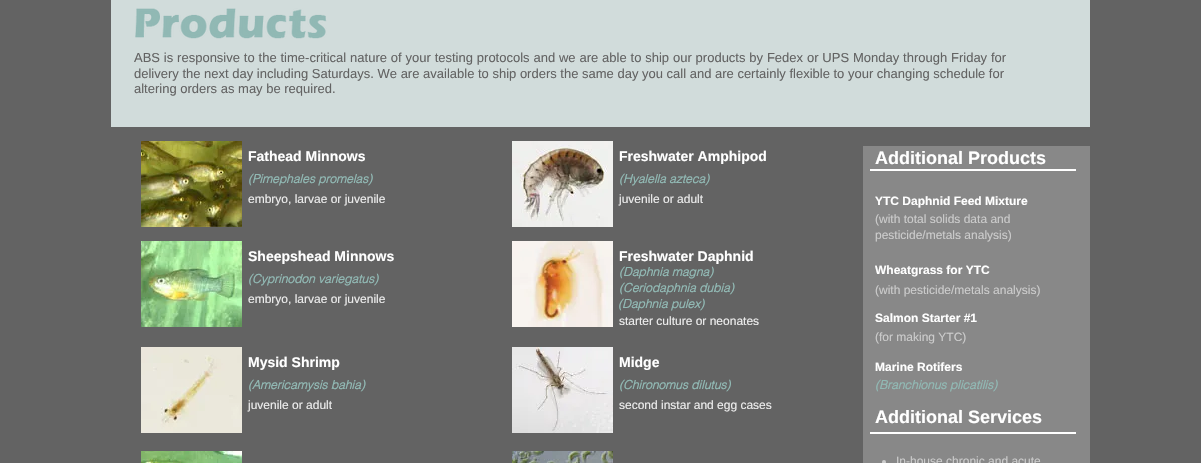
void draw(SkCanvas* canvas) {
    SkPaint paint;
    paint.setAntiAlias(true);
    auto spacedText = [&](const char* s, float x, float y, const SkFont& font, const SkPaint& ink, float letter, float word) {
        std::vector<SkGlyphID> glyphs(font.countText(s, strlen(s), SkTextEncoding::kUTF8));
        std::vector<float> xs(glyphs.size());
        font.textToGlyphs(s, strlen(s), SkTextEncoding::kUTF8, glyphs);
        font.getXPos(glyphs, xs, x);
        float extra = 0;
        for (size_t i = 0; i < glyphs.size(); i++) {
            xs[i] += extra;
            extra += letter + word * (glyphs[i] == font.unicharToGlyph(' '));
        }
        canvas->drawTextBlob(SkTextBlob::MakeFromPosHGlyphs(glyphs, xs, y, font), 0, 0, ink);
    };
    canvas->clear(0xFF636363);
    paint.setColor(0xFFD1DCDB);
    canvas->drawRect(SkRect::MakeXYWH(111, 0, 979, 127), paint);
    canvas->drawImageRect(SkImages::DeferredFromEncodedData(SkData::MakeFromFileName("img1.png")), SkRect::MakeXYWH(135, 8, 192, 31), SkSamplingOptions());
    SkFont font1(fontMgr->matchFamilyStyle("Liberation Sans", SkFontStyle::Normal()), 13);
    font1.setSubpixel(true);
    paint.setColor(0xFF636363);
    spacedText("ABS is responsive to the time-critical nature of your testing protocols and we are able to ship our products by Fedex or UPS Monday through Friday for", 134, 62, font1, paint, 0, 0.25f);
    canvas->drawString("delivery the next day including Saturdays. We are available to ship orders the same day you call and are certainly flexible to your changing schedule for", 134, 78, font1, paint);
    canvas->drawString("altering orders as may be required.", 134, 93, font1, paint);
    canvas->drawImageRect(SkImages::DeferredFromEncodedData(SkData::MakeFromFileName("img2.png")), SkRect::MakeXYWH(141, 141, 101, 86), SkSamplingOptions());
    SkFont font2(fontMgr->matchFamilyStyle("Liberation Sans", SkFontStyle::Bold()), 14);
    font2.setSubpixel(true);
    paint.setColor(0xFFFFFFFF);
    canvas->drawString("Fathead Minnows", 248, 161, font2, paint);
    SkFont font3(fontMgr->matchFamilyStyle("helvetica", SkFontStyle::BoldItalic()), 12);
    font3.setSubpixel(true);
    paint.setColor(0xFF91B9B4);
    canvas->drawString("(Pimephales promelas)", 248, 183, font3, paint);
    SkFont font4(fontMgr->matchFamilyStyle("Liberation Sans", SkFontStyle::Normal()), 12);
    font4.setSubpixel(true);
    paint.setColor(0xFFEDEDED);
    canvas->drawString("embryo, larvae or juvenile", 248, 203, font4, paint);
    canvas->drawImageRect(SkImages::DeferredFromEncodedData(SkData::MakeFromFileName("img3.png")), SkRect::MakeXYWH(512, 141, 101, 86), SkSamplingOptions());
    paint.setColor(0xFFFFFFFF);
    canvas->drawString("Freshwater Amphipod", 619, 161, font2, paint);
    paint.setColor(0xFF91B9B4);
    canvas->drawString("(Hyalella azteca)", 619, 183, font3, paint);
    paint.setColor(0xFFEDEDED);
    canvas->drawString("juvenile or adult", 619, 203, font4, paint);
    paint.setColor(0xFF888888);
    canvas->drawRect(SkRect::MakeXYWH(863, 146, 227, 317), paint);
    SkFont font5(fontMgr->matchFamilyStyle("Liberation Sans", SkFontStyle::Bold()), 18);
    font5.setSubpixel(true);
    paint.setColor(0xFFFFFFFF);
    canvas->drawString("Additional Products", 875, 164, font5, paint);
    canvas->drawRect(SkRect::MakeXYWH(870, 169, 206, 2), paint);
    SkFont font6(fontMgr->matchFamilyStyle("Liberation Sans", SkFontStyle::Bold()), 12);
    font6.setSubpixel(true);
    canvas->drawString("YTC Daphnid Feed Mixture", 875, 205, font6, paint);
    paint.setColor(0xFFCCCCCC);
    canvas->drawString("(with total solids data and", 875, 223, font4, paint);
    canvas->drawString("pesticide/metals analysis)", 875, 239, font4, paint);
    paint.setColor(0xFFFFFFFF);
    canvas->drawString("Wheatgrass for YTC", 875, 274, font6, paint);
    paint.setColor(0xFFCCCCCC);
    canvas->drawString("(with pesticide/metals analysis)", 875, 294, font4, paint);
    paint.setColor(0xFFFFFFFF);
    canvas->drawString("Salmon Starter #1", 875, 322, font6, paint);
    paint.setColor(0xFFCCCCCC);
    canvas->drawString("(for making YTC)", 875, 341, font4, paint);
    paint.setColor(0xFFFFFFFF);
    canvas->drawString("Marine Rotifers", 875, 371, font6, paint);
    paint.setColor(0xFF91B9B4);
    canvas->drawString("(Branchionus plicatilis)", 875, 389, font3, paint);
    paint.setColor(0xFFFFFFFF);
    canvas->drawString("Additional Services", 875, 423, font5, paint);
    canvas->drawRect(SkRect::MakeXYWH(870, 432, 206, 2), paint);
    paint.setColor(0xFFCCCCCC);
    canvas->drawCircle(884, 462, 2, paint);
    canvas->drawString("In-house chronic and acute", 896, 465, font4, paint);
    canvas->drawImageRect(SkImages::DeferredFromEncodedData(SkData::MakeFromFileName("img4.png")), SkRect::MakeXYWH(141, 241, 101, 86), SkSamplingOptions());
    paint.setColor(0xFFFFFFFF);
    canvas->drawString("Sheepshead Minnows", 248, 261, font2, paint);
    paint.setColor(0xFF91B9B4);
    canvas->drawString("(Cyprinodon variegatus)", 248, 283, font3, paint);
    paint.setColor(0xFFEDEDED);
    canvas->drawString("embryo, larvae or juvenile", 248, 303, font4, paint);
    canvas->drawImageRect(SkImages::DeferredFromEncodedData(SkData::MakeFromFileName("img5.png")), SkRect::MakeXYWH(512, 241, 101, 86), SkSamplingOptions());
    paint.setColor(0xFFFFFFFF);
    canvas->drawString("Freshwater Daphnid", 619, 261, font2, paint);
    paint.setColor(0xFF91B9B4);
    canvas->drawString("(Daphnia magna)", 619, 276, font3, paint);
    canvas->drawString("(Ceriodaphnia dubia)", 619, 292, font3, paint);
    canvas->drawString("(Daphnia pulex)", 618, 308, font3, paint);
    paint.setColor(0xFFEDEDED);
    canvas->drawString("starter culture or neonates", 619, 325, font4, paint);
    canvas->drawImageRect(SkImages::DeferredFromEncodedData(SkData::MakeFromFileName("img6.png")), SkRect::MakeXYWH(141, 347, 101, 86), SkSamplingOptions());
    paint.setColor(0xFFFFFFFF);
    canvas->drawString("Mysid Shrimp", 248, 367, font2, paint);
    paint.setColor(0xFF91B9B4);
    canvas->drawString("(Americamysis bahia)", 248, 389, font3, paint);
    paint.setColor(0xFFEDEDED);
    canvas->drawString("juvenile or adult", 248, 409, font4, paint);
    canvas->drawImageRect(SkImages::DeferredFromEncodedData(SkData::MakeFromFileName("img7.png")), SkRect::MakeXYWH(512, 347, 101, 86), SkSamplingOptions());
    paint.setColor(0xFFFFFFFF);
    canvas->drawString("Midge", 619, 367, font2, paint);
    paint.setColor(0xFF91B9B4);
    canvas->drawString("(Chironomus dilutus)", 619, 389, font3, paint);
    paint.setColor(0xFFEDEDED);
    canvas->drawString("second instar and egg cases", 619, 409, font4, paint);
    canvas->drawImageRect(SkImages::DeferredFromEncodedData(SkData::MakeFromFileName("img8.png")), SkRect::MakeXYWH(141, 451, 101, 12), SkSamplingOptions());
    canvas->drawImageRect(SkImages::DeferredFromEncodedData(SkData::MakeFromFileName("img9.png")), SkRect::MakeXYWH(512, 451, 101, 12), SkSamplingOptions());
}
